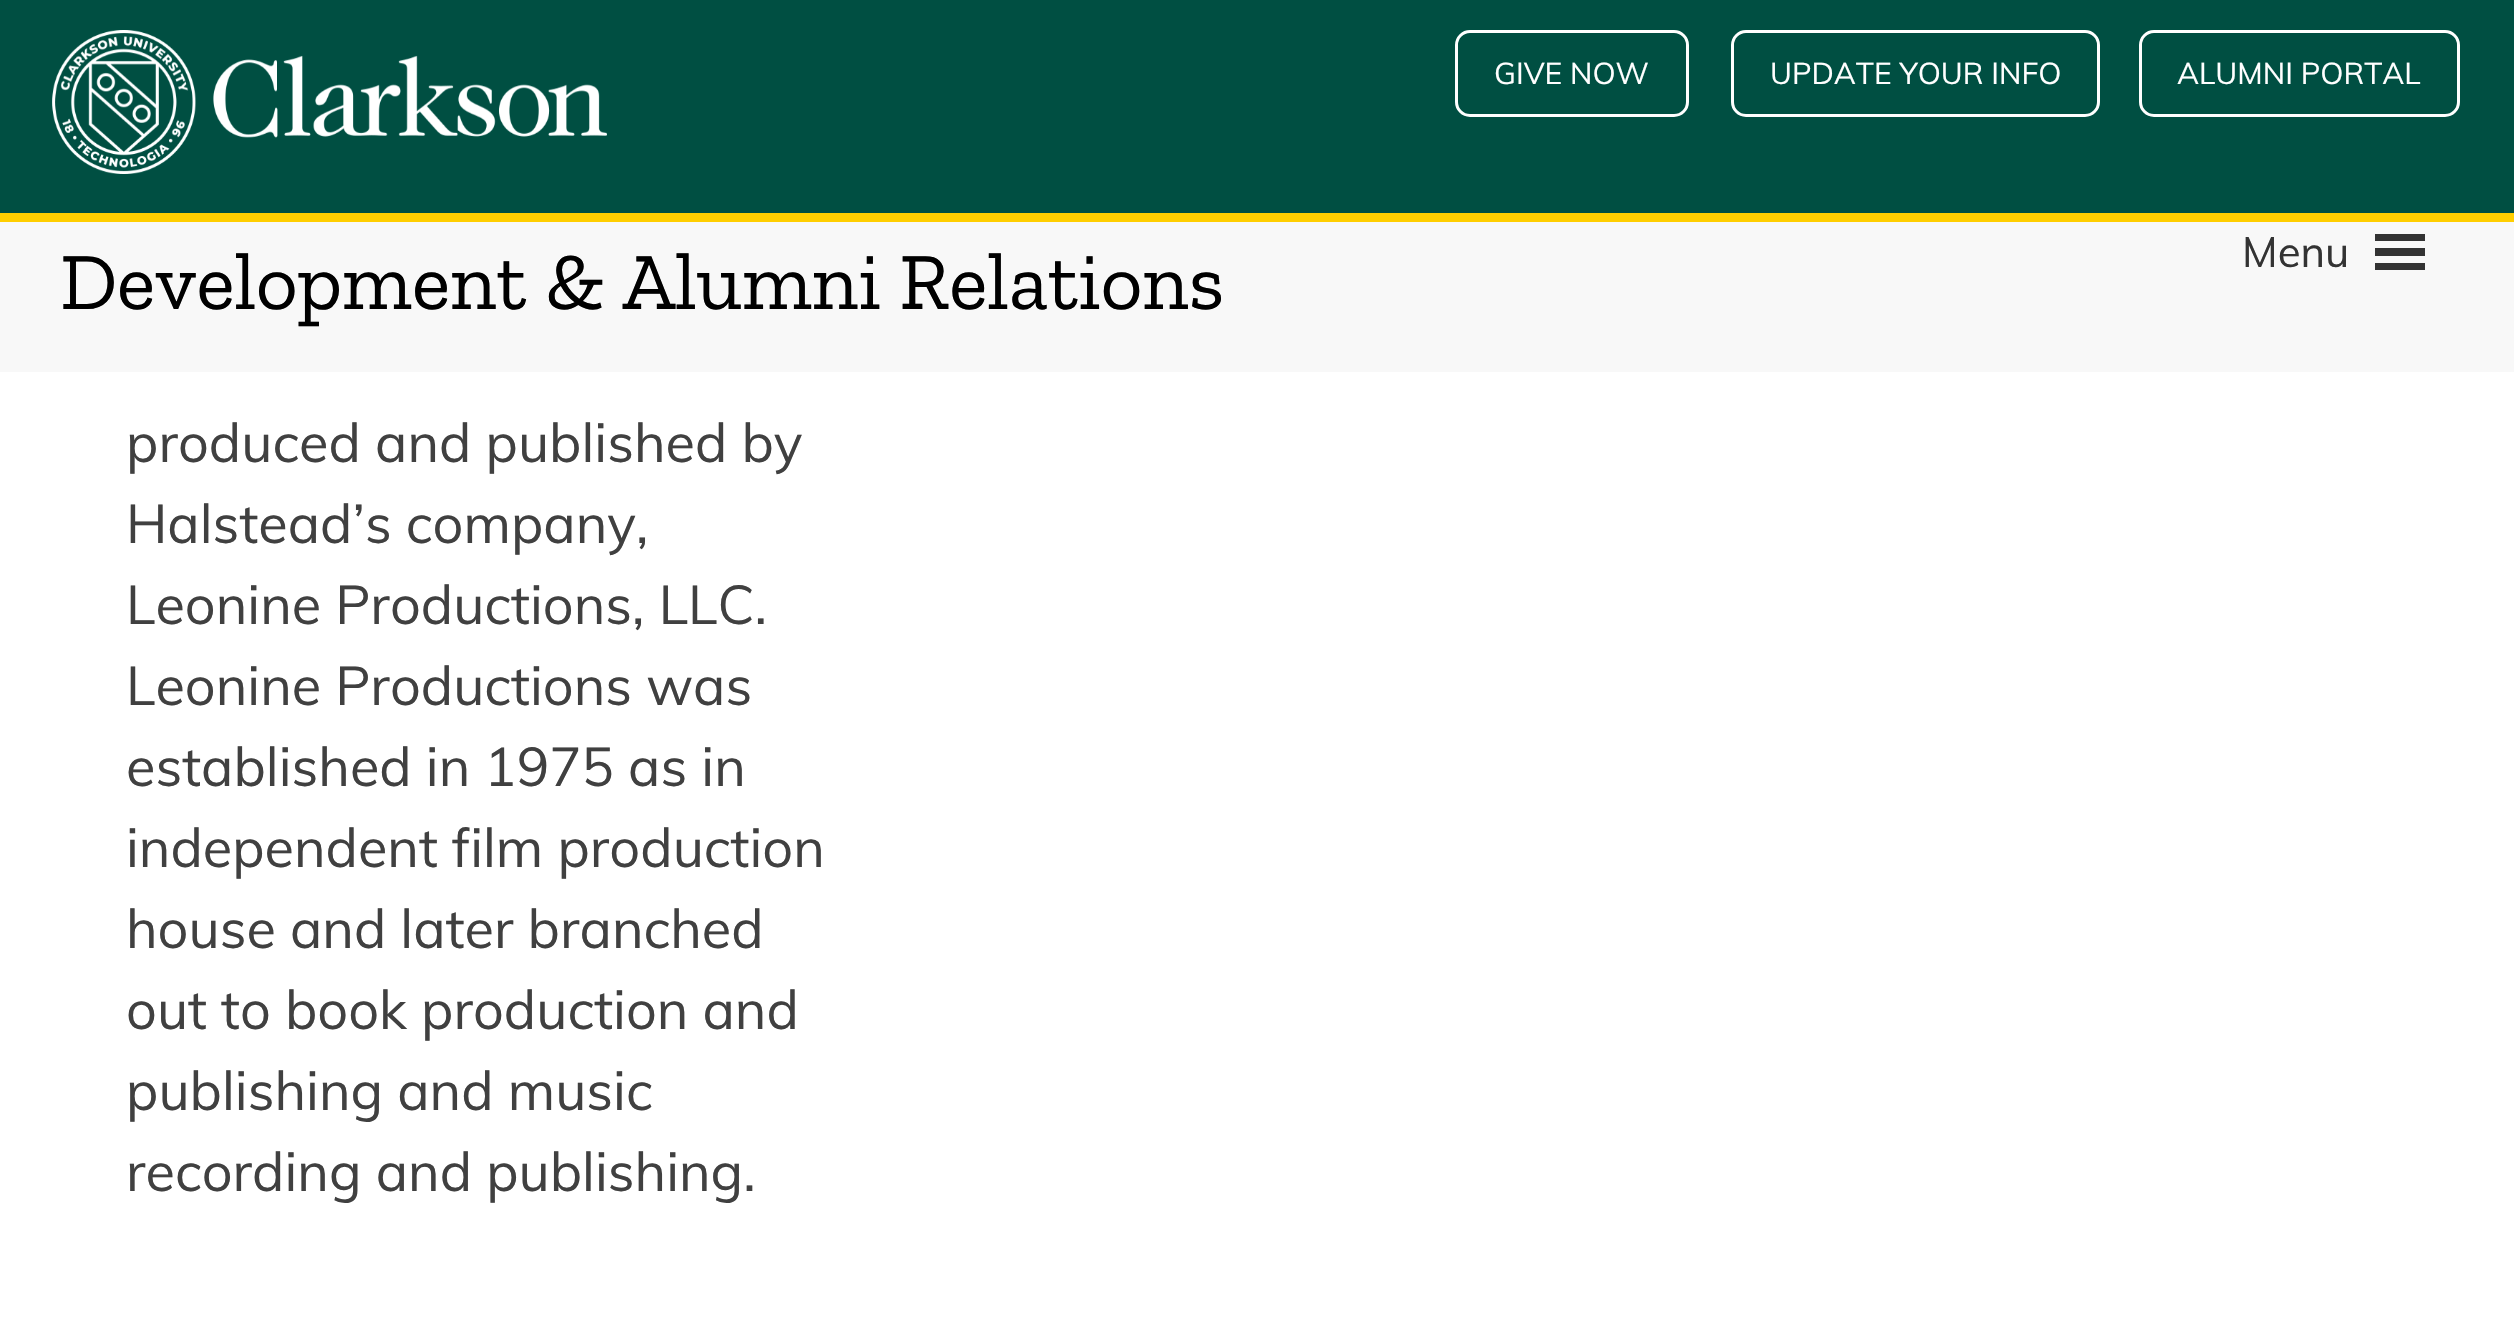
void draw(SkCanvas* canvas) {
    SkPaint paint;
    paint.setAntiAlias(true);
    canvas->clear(0xFFFFFFFF);
    paint.setColor(0xFF004F42);
    canvas->drawRect(SkRect::MakeXYWH(0, 0, 2514, 213), paint);
    paint.setColor(0xFFFFCE00);
    canvas->drawRect(SkRect::MakeXYWH(0, 213, 2514, 9), paint);
    canvas->drawImageRect(SkImages::DeferredFromEncodedData(SkData::MakeFromFileName("img1.png")), SkRect::MakeXYWH(52, 30, 555, 144), SkSamplingOptions());
    paint.setStyle(SkPaint::kStroke_Style);
    paint.setStrokeWidth(3);
    paint.setColor(0xFFFFFFFF);
    canvas->drawRoundRect(SkRect::MakeXYWH(1456.5f, 31.5f, 231, 84), 13.5f, 13.5f, paint);
    SkFont font1(fontMgr->matchFamilyStyle("Muli", SkFontStyle::Normal()), 30);
    font1.setSubpixel(true);
    paint.setStyle(SkPaint::kFill_Style);
    canvas->drawString("GIVE NOW", 1494, 84, font1, paint);
    paint.setStyle(SkPaint::kStroke_Style);
    canvas->drawRoundRect(SkRect::MakeXYWH(1732.5f, 31.5f, 366, 84), 13.5f, 13.5f, paint);
    paint.setStyle(SkPaint::kFill_Style);
    canvas->drawString("UPDATE YOUR INFO", 1770, 84, font1, paint);
    paint.setStyle(SkPaint::kStroke_Style);
    canvas->drawRoundRect(SkRect::MakeXYWH(2140.5f, 31.5f, 318, 84), 13.5f, 13.5f, paint);
    paint.setStyle(SkPaint::kFill_Style);
    canvas->drawString("ALUMNI PORTAL", 2177, 84, font1, paint);
    paint.setColor(0xFFF8F8F8);
    canvas->drawRect(SkRect::MakeXYWH(0, 222, 2514, 150), paint);
    SkFont font2(fontMgr->matchFamilyStyle("Zilla Slab", SkFontStyle::Normal()), 81);
    font2.setSubpixel(true);
    paint.setColor(0xFF000000);
    canvas->drawString("Development & Alumni Relations", 60, 309, font2, paint);
    SkFont font3(fontMgr->matchFamilyStyle("Muli", SkFontStyle::Normal()), 42);
    font3.setSubpixel(true);
    paint.setColor(0xFF333333);
    canvas->drawString("Menu", 2242, 267, font3, paint);
    canvas->drawPath(SkPathBuilder().moveTo(2375, 270).lineTo(2425, 270).lineTo(2425, 263).lineTo(2375, 263).close().moveTo(2375, 234).lineTo(2375, 241).lineTo(2425, 241).lineTo(2425, 234).close().moveTo(2375, 256).lineTo(2425, 256).lineTo(2425, 248).lineTo(2375, 248).close().detach(), paint);
    SkFont font4(fontMgr->matchFamilyStyle("Muli", SkFontStyle::Normal()), 54);
    font4.setSubpixel(true);
    paint.setColor(0xFF404040);
    canvas->drawString("produced and published by", 126, 462, font4, paint);
    canvas->drawString("Halstead’s company,", 126, 543, font4, paint);
    canvas->drawString("Leonine Productions, LLC.", 126, 624, font4, paint);
    canvas->drawString("Leonine Productions was", 126, 705, font4, paint);
    canvas->drawString("established in 1975 as in", 126, 786, font4, paint);
    canvas->drawString("independent film production", 126, 867, font4, paint);
    canvas->drawString("house and later branched", 126, 948, font4, paint);
    canvas->drawString("out to book production and", 126, 1029, font4, paint);
    canvas->drawString("publishing and music", 126, 1110, font4, paint);
    canvas->drawString("recording and publishing.", 126, 1191, font4, paint);
}
